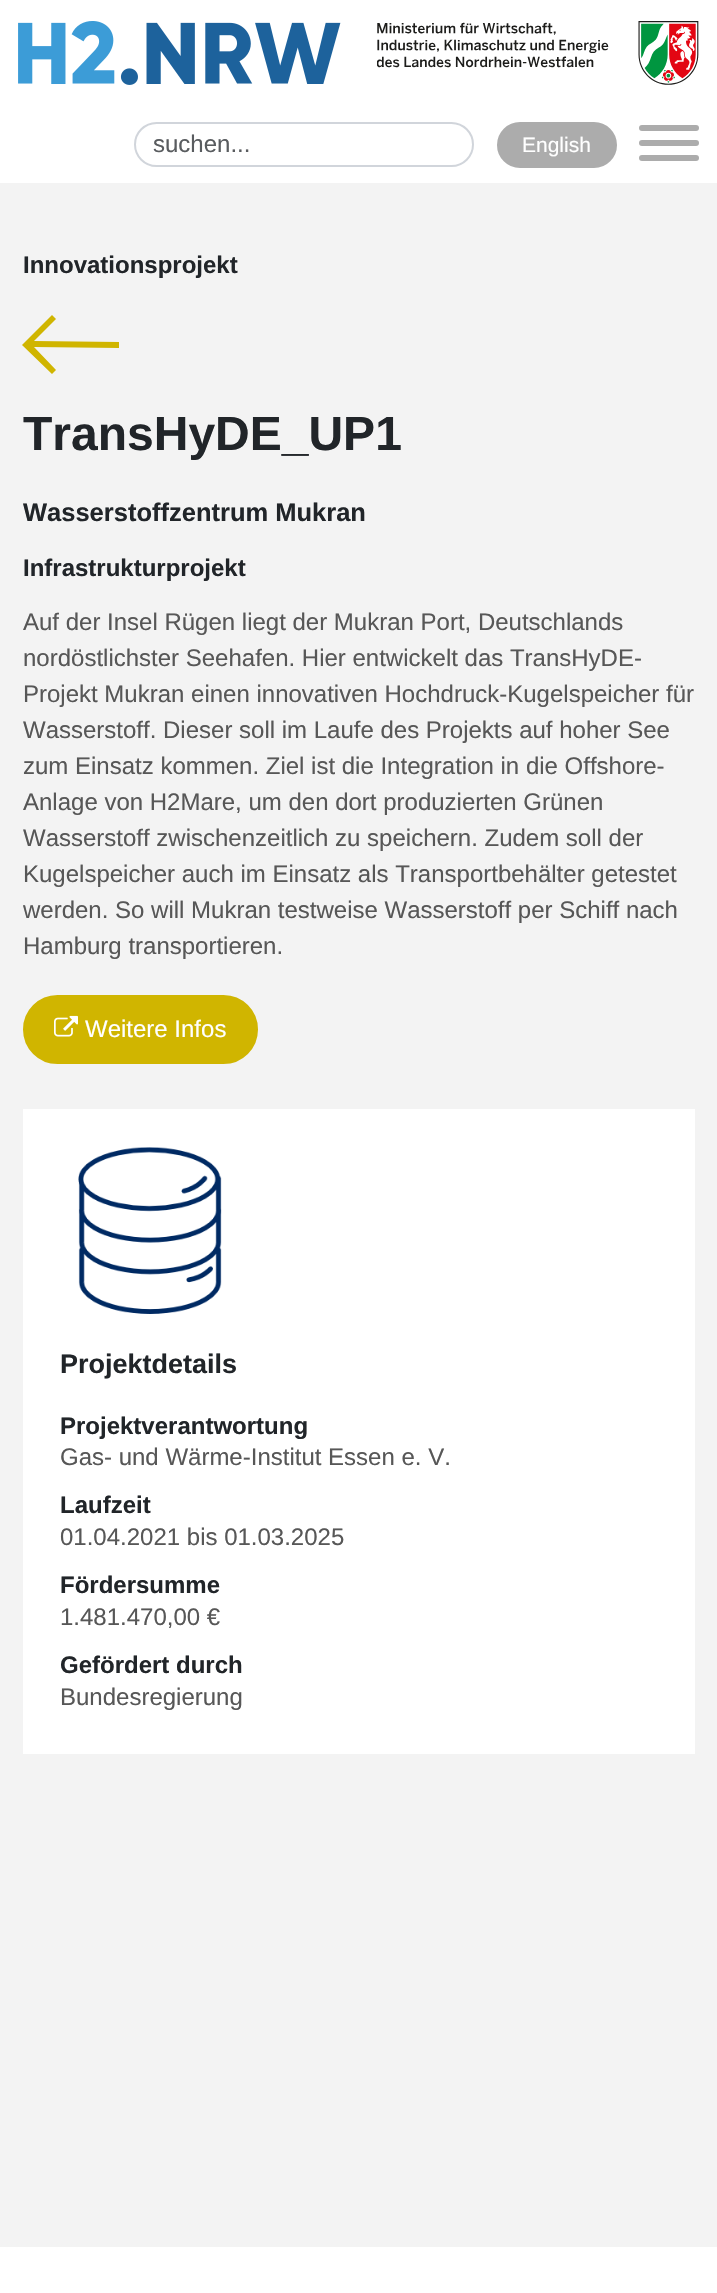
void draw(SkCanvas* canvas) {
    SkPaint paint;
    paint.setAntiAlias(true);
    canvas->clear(0xFFFFFFFF);
    canvas->drawImageRect(SkImages::DeferredFromEncodedData(SkData::MakeFromFileName("img1.png")), SkRect::MakeXYWH(18, 21, 323, 64), SkSamplingOptions());
    canvas->drawImageRect(SkImages::DeferredFromEncodedData(SkData::MakeFromFileName("img2.png")), SkRect::MakeXYWH(377, 21, 322, 64), SkSamplingOptions());
    paint.setStyle(SkPaint::kStroke_Style);
    paint.setStrokeWidth(2);
    paint.setColor(0xFFD1D5DB);
    canvas->drawRoundRect(SkRect::MakeXYWH(135, 123, 338, 43), 21.5f, 21.5f, paint);
    SkFont font1(fontMgr->matchFamilyStyle("Liberation Sans", SkFontStyle::Normal()), 24);
    font1.setSubpixel(true);
    paint.setStyle(SkPaint::kFill_Style);
    paint.setColor(0xFF595C5F);
    canvas->drawString("suchen...", 153, 152, font1, paint);
    paint.setColor(0xFFACACAC);
    canvas->drawRoundRect(SkRect::MakeXYWH(498, 123, 118, 44), 22, 22, paint);
    paint.setStyle(SkPaint::kStroke_Style);
    canvas->drawRoundRect(SkRect::MakeXYWH(498, 123, 118, 44), 22, 22, paint);
    SkFont font2(fontMgr->matchFamilyStyle("Liberation Sans", SkFontStyle::Normal()), 21);
    font2.setSubpixel(true);
    paint.setStyle(SkPaint::kFill_Style);
    paint.setColor(0xFFFFFFFF);
    canvas->drawString("English", 522, 152, font2, paint);
    paint.setColor(0xFFACACAC);
    canvas->drawRoundRect(SkRect::MakeXYWH(639, 155, 60, 6), 3, 3, paint);
    canvas->drawRoundRect(SkRect::MakeXYWH(639, 125, 60, 6), 3, 3, paint);
    canvas->drawRoundRect(SkRect::MakeXYWH(639, 140, 60, 6), 3, 3, paint);
    paint.setColor(0xFFF3F3F3);
    canvas->drawRect(SkRect::MakeXYWH(0, 183, 717, 2064), paint);
    SkFont font3(fontMgr->matchFamilyStyle("Liberation Sans", SkFontStyle::Bold()), 24);
    font3.setSubpixel(true);
    paint.setColor(0xFF212529);
    canvas->drawString("Innovationsprojekt", 23, 273, font3, paint);
    paint.setColor(0xFFD0B500);
    canvas->drawPath(SkPathBuilder(SkPathFillType::kEvenOdd).moveTo(34, 347).lineTo(56, 370).lineTo(52, 374).lineTo(22, 345).lineTo(52, 315).lineTo(56, 319).lineTo(34, 341).lineTo(119, 342).lineTo(119, 348).close().detach(), paint);
    SkFont font4(fontMgr->matchFamilyStyle("Liberation Sans", SkFontStyle::Bold()), 48);
    font4.setSubpixel(true);
    paint.setColor(0xFF212529);
    canvas->drawString("TransHyDE_UP1", 23, 450, font4, paint);
    SkFont font5(fontMgr->matchFamilyStyle("Liberation Sans", SkFontStyle::Bold()), 25.5f);
    font5.setSubpixel(true);
    canvas->drawString("Wasserstoffzentrum Mukran", 23, 521, font5, paint);
    canvas->drawString("Infrastrukturprojekt", 23, 576, font3, paint);
    paint.setColor(0xFF575757);
    canvas->drawString("Auf der Insel Rügen liegt der Mukran Port, Deutschlands", 23, 630, font1, paint);
    canvas->drawString("nordöstlichster Seehafen. Hier entwickelt das TransHyDE-", 23, 666, font1, paint);
    canvas->drawString("Projekt Mukran einen innovativen Hochdruck-Kugelspeicher für", 23, 702, font1, paint);
    canvas->drawString("Wasserstoff. Dieser soll im Laufe des Projekts auf hoher See", 23, 738, font1, paint);
    canvas->drawString("zum Einsatz kommen. Ziel ist die Integration in die Offshore-", 23, 774, font1, paint);
    canvas->drawString("Anlage von H2Mare, um den dort produzierten Grünen", 23, 810, font1, paint);
    canvas->drawString("Wasserstoff zwischenzeitlich zu speichern. Zudem soll der", 23, 846, font1, paint);
    canvas->drawString("Kugelspeicher auch im Einsatz als Transportbehälter getestet", 23, 882, font1, paint);
    canvas->drawString("werden. So will Mukran testweise Wasserstoff per Schiff nach", 23, 918, font1, paint);
    canvas->drawString("Hamburg transportieren.", 23, 954, font1, paint);
    paint.setColor(0xFFD0B500);
    canvas->drawRoundRect(SkRect::MakeXYWH(24, 996, 233, 67), 33.5f, 33.5f, paint);
    paint.setStyle(SkPaint::kStroke_Style);
    canvas->drawRoundRect(SkRect::MakeXYWH(24, 996, 233, 67), 33.5f, 33.5f, paint);
    canvas->drawImageRect(SkImages::DeferredFromEncodedData(SkData::MakeFromFileName("img3.png")), SkRect::MakeXYWH(54, 1015, 24, 22), SkSamplingOptions());
    paint.setStyle(SkPaint::kFill_Style);
    paint.setColor(0xFFFFFFFF);
    canvas->drawString("Weitere Infos", 85, 1037, font1, paint);
    canvas->drawRect(SkRect::MakeXYWH(23, 1109, 672, 645), paint);
    canvas->drawImageRect(SkImages::DeferredFromEncodedData(SkData::MakeFromFileName("img4.png")), SkRect::MakeXYWH(78, 1147, 144, 167), SkSamplingOptions());
    SkFont font6(fontMgr->matchFamilyStyle("Liberation Sans", SkFontStyle::Bold()), 27);
    font6.setSubpixel(true);
    paint.setColor(0xFF212529);
    canvas->drawString("Projektdetails", 60, 1373, font6, paint);
    canvas->drawString("Projektverantwortung", 60, 1434, font3, paint);
    paint.setColor(0xFF575757);
    canvas->drawString("Gas- und Wärme-Institut Essen e. V.", 60, 1465, font1, paint);
    paint.setColor(0xFF212529);
    canvas->drawString("Laufzeit", 60, 1513, font3, paint);
    paint.setColor(0xFF575757);
    canvas->drawString("01.04.2021 bis 01.03.2025", 60, 1545, font1, paint);
    paint.setColor(0xFF212529);
    canvas->drawString("Fördersumme", 60, 1593, font3, paint);
    paint.setColor(0xFF575757);
    canvas->drawString("1.481.470,00 €", 60, 1625, font1, paint);
    paint.setColor(0xFF212529);
    canvas->drawString("Gefördert durch", 60, 1673, font3, paint);
    paint.setColor(0xFF575757);
    canvas->drawString("Bundesregierung", 60, 1705, font1, paint);
}
